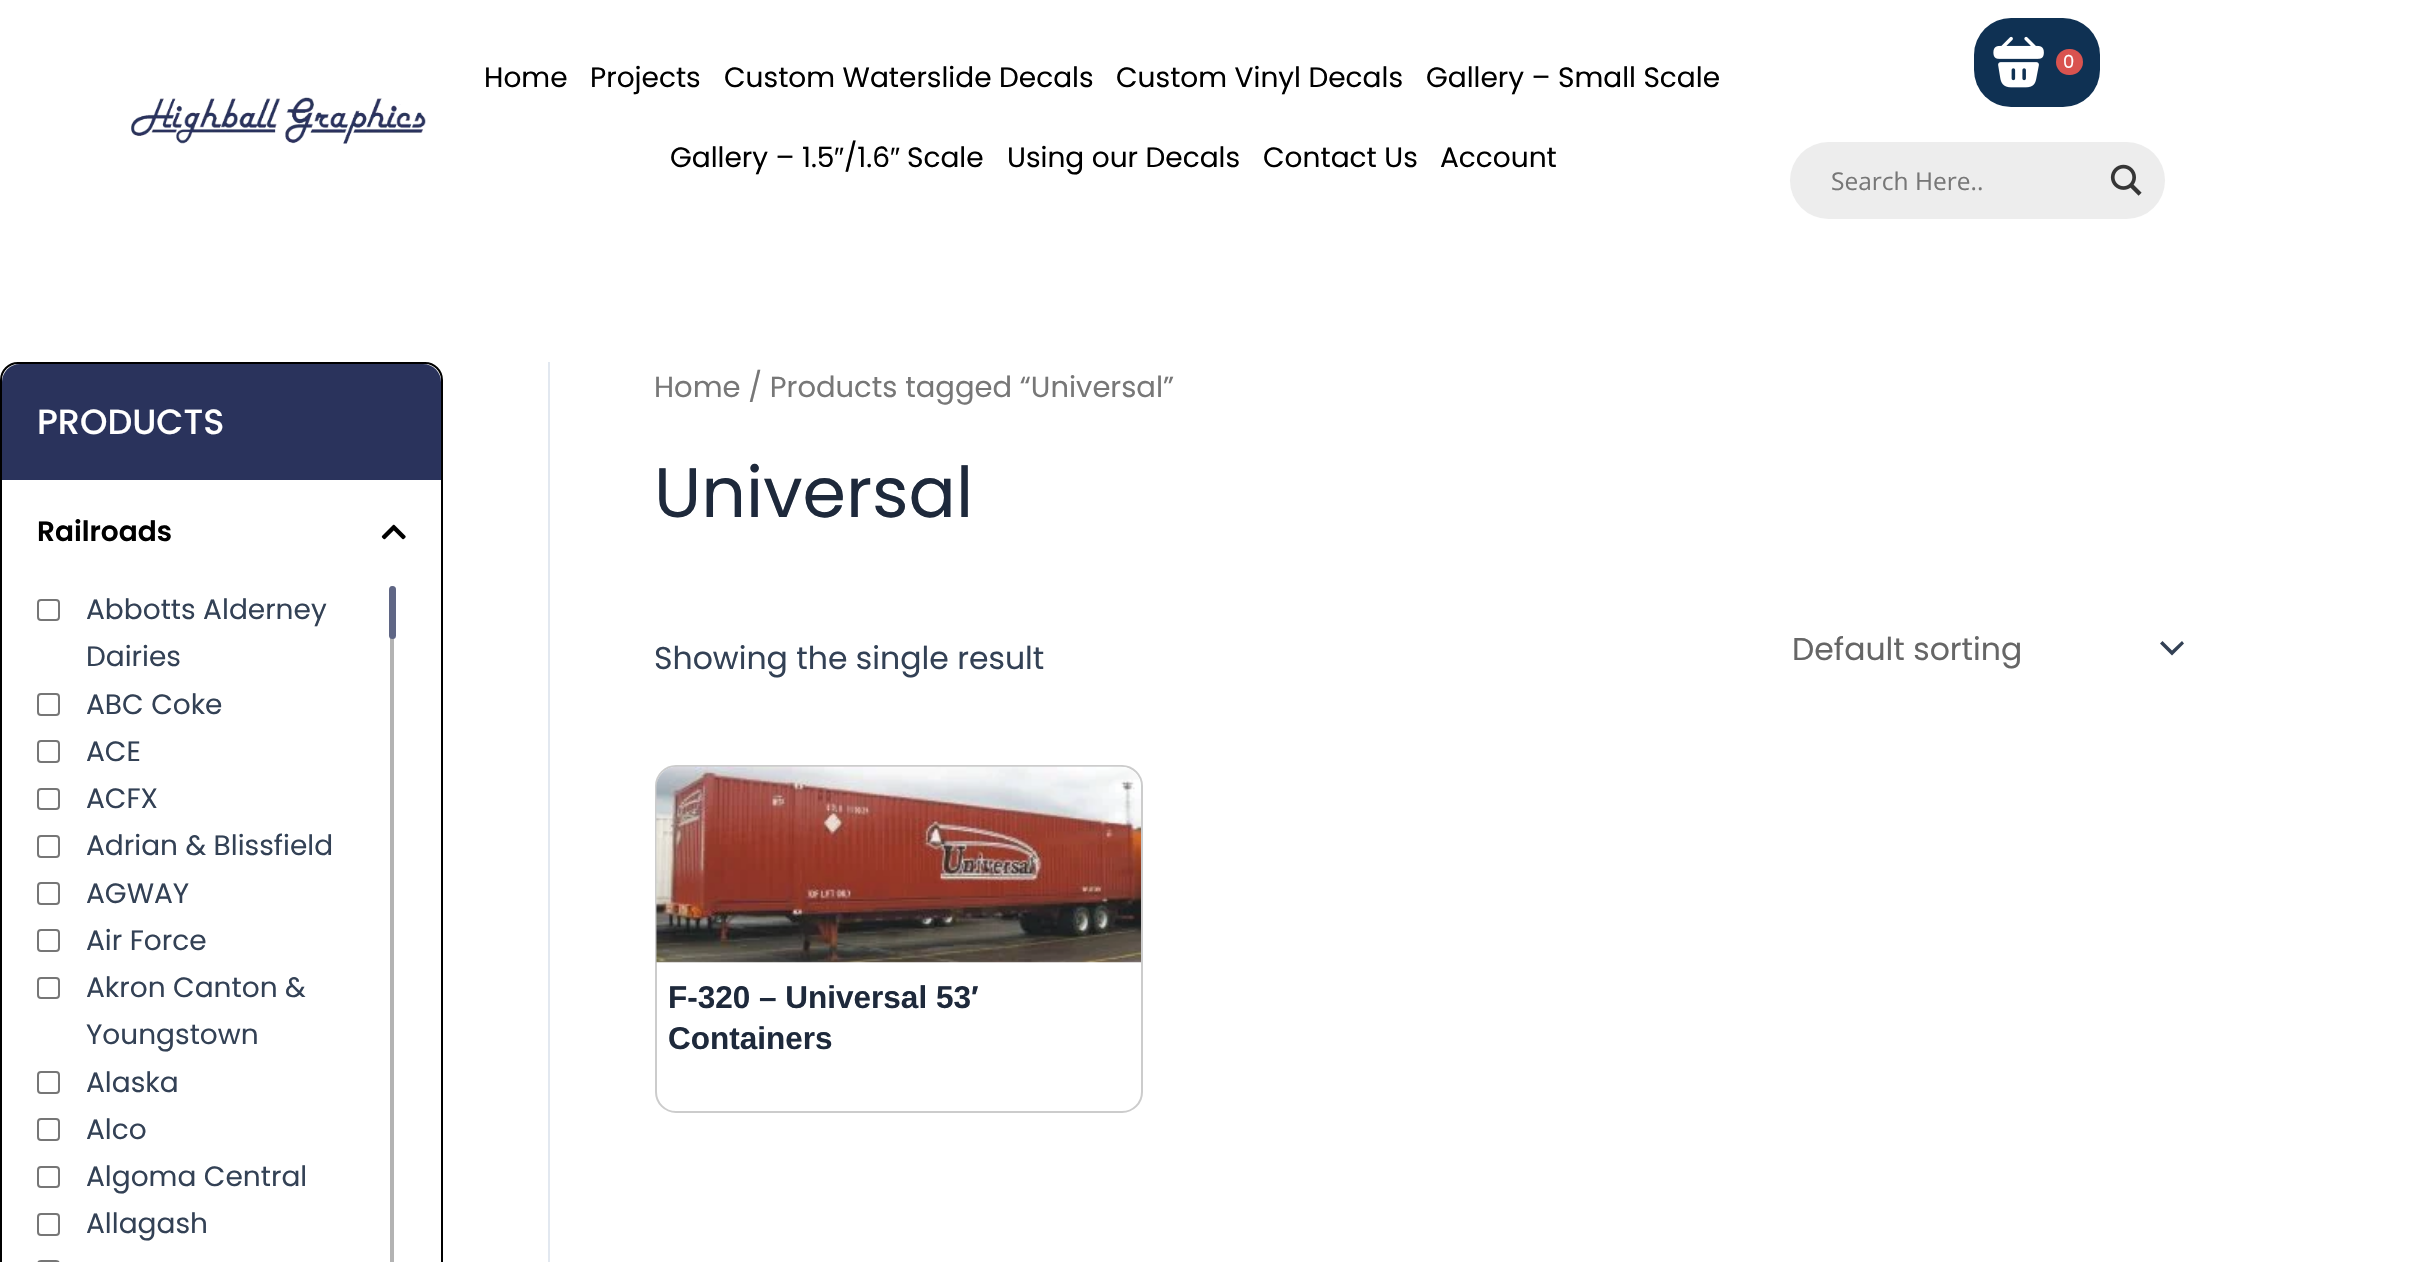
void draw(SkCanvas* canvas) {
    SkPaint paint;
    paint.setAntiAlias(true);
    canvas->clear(0xFFFFFFFF);
    canvas->drawImageRect(SkImages::DeferredFromEncodedData(SkData::MakeFromFileName("img1.png")), SkRect::MakeXYWH(131, 97, 295, 47), SkSamplingOptions());
    SkFont font1(fontMgr->matchFamilyStyle("Poppins", SkFontStyle::Normal()), 28);
    font1.setSubpixel(true);
    paint.setColor(0xFF000000);
    canvas->drawString("Home", 484, 87, font1, paint);
    canvas->drawString("Projects", 590, 87, font1, paint);
    canvas->drawString("Custom Waterslide Decals", 724, 87, font1, paint);
    canvas->drawString("Custom Vinyl Decals", 1116, 87, font1, paint);
    canvas->drawString("Gallery – Small Scale", 1426, 87, font1, paint);
    canvas->drawString("Gallery – 1.5", 670, 167, font1, paint);
    SkFont font2(fontMgr->matchFamilyStyle("Liberation Sans", SkFontStyle::Normal()), 28);
    font2.setSubpixel(true);
    canvas->drawString("″", 834, 167, font2, paint);
    canvas->drawString("/1.6", 844, 167, font1, paint);
    canvas->drawString("″", 890, 167, font2, paint);
    canvas->drawString("Scale", 907, 167, font1, paint);
    canvas->drawString("Using our Decals", 1007, 167, font1, paint);
    canvas->drawString("Contact Us", 1263, 167, font1, paint);
    canvas->drawString("Account", 1440, 167, font1, paint);
    paint.setColor(0xFF0F3153);
    canvas->drawRoundRect(SkRect::MakeXYWH(1974, 18, 126, 89), 37, 37, paint);
    canvas->drawImageRect(SkImages::DeferredFromEncodedData(SkData::MakeFromFileName("img2.png")), SkRect::MakeXYWH(1993, 36, 51, 52), SkSamplingOptions());
    paint.setColor(0xFFD9534F);
    canvas->drawRoundRect(SkRect::MakeXYWH(2056, 49, 27, 26), 13, 13, paint);
    SkFont font3(fontMgr->matchFamilyStyle("Poppins", SkFontStyle::Normal()), 18);
    font3.setSubpixel(true);
    paint.setColor(0xFFFFFFFF);
    canvas->drawString("0", 2063, 68, font3, paint);
    paint.setColor(0xFFEDEDED);
    canvas->drawRoundRect(SkRect::MakeXYWH(1790, 142, 375, 77), 38.5f, 38.5f, paint);
    SkFont font4(fontMgr->matchFamilyStyle("Open Sans", SkFontStyle::Normal()), 24.5f);
    font4.setSubpixel(true);
    paint.setColor(0xFF777777);
    canvas->drawString("Search Here..", 1831, 190, font4, paint);
    canvas->drawImageRect(SkImages::DeferredFromEncodedData(SkData::MakeFromFileName("img3.png")), SkRect::MakeXYWH(2110, 164, 32, 32), SkSamplingOptions());
    paint.setColor(0xFFE2E8F0);
    canvas->drawRect(SkRect::MakeXYWH(548, 362, 2, 900), paint);
    paint.setStyle(SkPaint::kStroke_Style);
    paint.setStrokeWidth(2);
    paint.setColor(0xFF000000);
    canvas->drawRoundRect(SkRect::MakeXYWH(1, 363, 441, 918), 17, 17, paint);
    paint.setStyle(SkPaint::kFill_Style);
    paint.setColor(0xFF2A335C);
    canvas->drawPath(SkPathBuilder().moveTo(20, 364).lineTo(423, 364).cubicTo(433, 364, 441, 372, 441, 382).lineTo(441, 480).lineTo(2, 480).lineTo(2, 382).cubicTo(2, 372, 10, 364, 20, 364).close().detach(), paint);
    SkFont font5(fontMgr->matchFamilyStyle("Poppins", SkFontStyle(500, SkFontStyle::kNormal_Width, SkFontStyle::kUpright_Slant)), 35);
    font5.setSubpixel(true);
    paint.setColor(0xFFFFFFFF);
    canvas->drawString("PRODUCTS", 37, 434, font5, paint);
    SkFont font6(fontMgr->matchFamilyStyle("Poppins", SkFontStyle(600, SkFontStyle::kNormal_Width, SkFontStyle::kUpright_Slant)), 28);
    font6.setSubpixel(true);
    paint.setColor(0xFF000000);
    canvas->drawString("Railroads", 37, 541, font6, paint);
    canvas->drawImageRect(SkImages::DeferredFromEncodedData(SkData::MakeFromFileName("img4.png")), SkRect::MakeXYWH(381, 524, 25, 16), SkSamplingOptions());
    paint.setStyle(SkPaint::kStroke_Style);
    paint.setColor(0xFF767676);
    canvas->drawRoundRect(SkRect::MakeXYWH(38, 600, 21, 20), 3, 3, paint);
    paint.setStyle(SkPaint::kFill_Style);
    paint.setColor(0xFF334155);
    canvas->drawString("Abbotts Alderney", 86, 619, font1, paint);
    canvas->drawString("Dairies", 86, 666, font1, paint);
    paint.setStyle(SkPaint::kStroke_Style);
    paint.setColor(0xFF767676);
    canvas->drawRoundRect(SkRect::MakeXYWH(38, 694, 21, 21), 3, 3, paint);
    paint.setStyle(SkPaint::kFill_Style);
    paint.setColor(0xFF334155);
    canvas->drawString("ABC Coke", 86, 714, font1, paint);
    paint.setStyle(SkPaint::kStroke_Style);
    paint.setColor(0xFF767676);
    canvas->drawRoundRect(SkRect::MakeXYWH(38, 741, 21, 21), 3, 3, paint);
    paint.setStyle(SkPaint::kFill_Style);
    paint.setColor(0xFF334155);
    canvas->drawString("ACE", 86, 761, font1, paint);
    paint.setStyle(SkPaint::kStroke_Style);
    paint.setColor(0xFF767676);
    canvas->drawRoundRect(SkRect::MakeXYWH(38, 789, 21, 20), 3, 3, paint);
    paint.setStyle(SkPaint::kFill_Style);
    paint.setColor(0xFF334155);
    canvas->drawString("ACFX", 86, 808, font1, paint);
    paint.setStyle(SkPaint::kStroke_Style);
    paint.setColor(0xFF767676);
    canvas->drawRoundRect(SkRect::MakeXYWH(38, 836, 21, 21), 3, 3, paint);
    paint.setStyle(SkPaint::kFill_Style);
    paint.setColor(0xFF334155);
    canvas->drawString("Adrian & Blissfield", 86, 855, font1, paint);
    paint.setStyle(SkPaint::kStroke_Style);
    paint.setColor(0xFF767676);
    canvas->drawRoundRect(SkRect::MakeXYWH(38, 883, 21, 21), 3, 3, paint);
    paint.setStyle(SkPaint::kFill_Style);
    paint.setColor(0xFF334155);
    canvas->drawString("AGWAY", 86, 903, font1, paint);
    paint.setStyle(SkPaint::kStroke_Style);
    paint.setColor(0xFF767676);
    canvas->drawRoundRect(SkRect::MakeXYWH(38, 930, 21, 21), 3, 3, paint);
    paint.setStyle(SkPaint::kFill_Style);
    paint.setColor(0xFF334155);
    canvas->drawString("Air Force", 86, 950, font1, paint);
    paint.setStyle(SkPaint::kStroke_Style);
    paint.setColor(0xFF767676);
    canvas->drawRoundRect(SkRect::MakeXYWH(38, 978, 21, 20), 3, 3, paint);
    paint.setStyle(SkPaint::kFill_Style);
    paint.setColor(0xFF334155);
    canvas->drawString("Akron Canton &", 86, 997, font1, paint);
    canvas->drawString("Youngstown", 86, 1044, font1, paint);
    paint.setStyle(SkPaint::kStroke_Style);
    paint.setColor(0xFF767676);
    canvas->drawRoundRect(SkRect::MakeXYWH(38, 1072, 21, 21), 3, 3, paint);
    paint.setStyle(SkPaint::kFill_Style);
    paint.setColor(0xFF334155);
    canvas->drawString("Alaska", 86, 1092, font1, paint);
    paint.setStyle(SkPaint::kStroke_Style);
    paint.setColor(0xFF767676);
    canvas->drawRoundRect(SkRect::MakeXYWH(38, 1119, 21, 21), 3, 3, paint);
    paint.setStyle(SkPaint::kFill_Style);
    paint.setColor(0xFF334155);
    canvas->drawString("Alco", 86, 1139, font1, paint);
    paint.setStyle(SkPaint::kStroke_Style);
    paint.setColor(0xFF767676);
    canvas->drawRoundRect(SkRect::MakeXYWH(38, 1167, 21, 20), 3, 3, paint);
    paint.setStyle(SkPaint::kFill_Style);
    paint.setColor(0xFF334155);
    canvas->drawString("Algoma Central", 86, 1186, font1, paint);
    paint.setStyle(SkPaint::kStroke_Style);
    paint.setColor(0xFF767676);
    canvas->drawRoundRect(SkRect::MakeXYWH(38, 1214, 21, 21), 3, 3, paint);
    paint.setStyle(SkPaint::kFill_Style);
    paint.setColor(0xFF334155);
    canvas->drawString("Allagash", 86, 1233, font1, paint);
    paint.setStyle(SkPaint::kStroke_Style);
    paint.setColor(0xFF767676);
    canvas->drawRoundRect(SkRect::MakeXYWH(38, 1261, 21, 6), 3, 3, paint);
    paint.setStyle(SkPaint::kFill_Style);
    paint.setColor(0xFFB3B3B3);
    canvas->drawRoundRect(SkRect::MakeXYWH(390, 586, 4, 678), 2, 2, paint);
    paint.setColor(0xFF5F6685);
    canvas->drawRoundRect(SkRect::MakeXYWH(389, 586, 7, 53), 3.5f, 3.5f, paint);
    SkFont font7(fontMgr->matchFamilyStyle("Poppins", SkFontStyle::Normal()), 29);
    font7.setSubpixel(true);
    paint.setColor(0xFF777777);
    canvas->drawString("Home / Products tagged “Universal”", 654, 397, font7, paint);
    SkFont font8(fontMgr->matchFamilyStyle("Poppins", SkFontStyle::Normal()), 70);
    font8.setSubpixel(true);
    paint.setColor(0xFF1E293B);
    canvas->drawString("Universal", 654, 517, font8, paint);
    SkFont font9(fontMgr->matchFamilyStyle("Poppins", SkFontStyle::Normal()), 31.5f);
    font9.setSubpixel(true);
    paint.setColor(0xFF334155);
    canvas->drawString("Showing the single result", 654, 669, font9, paint);
    canvas->drawPath(SkPathBuilder().moveTo(2160, 643.5f).lineTo(2172, 655.5f).lineTo(2184, 643.5f).lineTo(2182, 641).lineTo(2172, 650.5f).lineTo(2162.5f, 641).close().detach(), paint);
    paint.setColor(0xFF666666);
    canvas->drawString("Default sorting", 1792, 660, font9, paint);
    paint.setStyle(SkPaint::kStroke_Style);
    paint.setColor(0xFFCCCCCC);
    canvas->drawRoundRect(SkRect::MakeXYWH(656, 766, 486, 346), 20, 20, paint);
    canvas->drawImageRect(SkImages::DeferredFromEncodedData(SkData::MakeFromFileName("img5.png")), SkRect::MakeXYWH(656, 766, 485, 197), SkSamplingOptions());
    SkFont font10(fontMgr->matchFamilyStyle("Liberation Sans", SkFontStyle::Bold()), 31.5f);
    font10.setSubpixel(true);
    paint.setStyle(SkPaint::kFill_Style);
    paint.setColor(0xFF1E293B);
    canvas->drawString("F-320 – Universal 53′", 668, 1008, font10, paint);
    canvas->drawString("Containers", 668, 1049, font10, paint);
}
